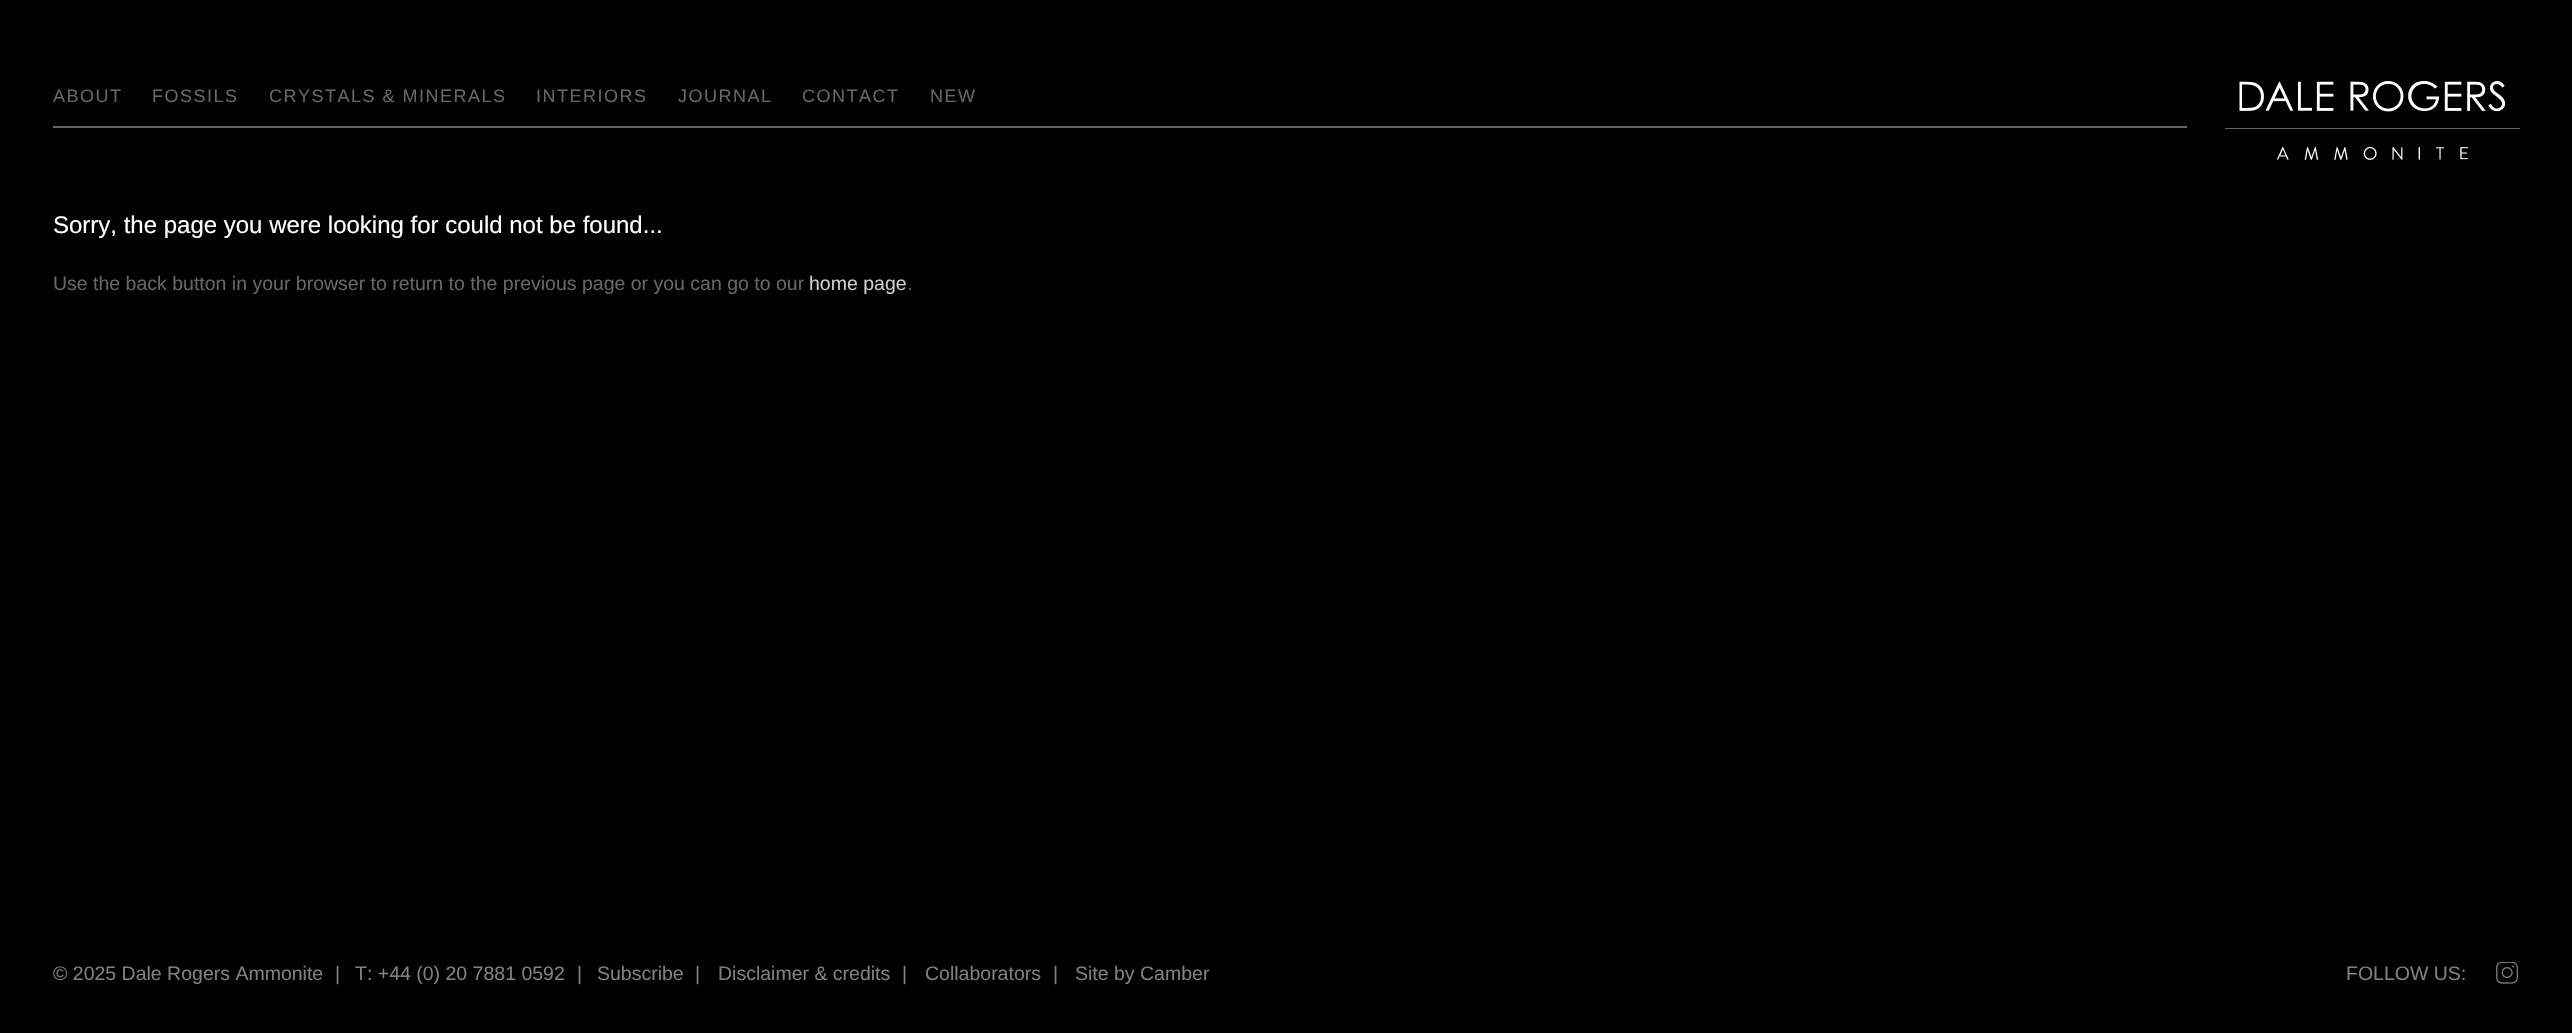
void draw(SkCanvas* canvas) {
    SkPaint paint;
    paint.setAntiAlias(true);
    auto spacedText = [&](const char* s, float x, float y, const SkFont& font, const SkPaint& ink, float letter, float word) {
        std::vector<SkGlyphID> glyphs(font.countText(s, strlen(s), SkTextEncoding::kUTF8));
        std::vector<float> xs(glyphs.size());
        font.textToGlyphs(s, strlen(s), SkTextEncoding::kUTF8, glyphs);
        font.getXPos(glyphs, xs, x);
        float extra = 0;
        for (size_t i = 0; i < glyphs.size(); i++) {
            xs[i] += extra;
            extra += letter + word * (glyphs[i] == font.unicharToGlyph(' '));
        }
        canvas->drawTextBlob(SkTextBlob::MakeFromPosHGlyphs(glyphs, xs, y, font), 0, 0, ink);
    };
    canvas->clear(0xFF000000);
    paint.setColor(0xFF666666);
    canvas->drawRect(SkRect::MakeXYWH(53, 126, 2134, 2), paint);
    SkFont font1(fontMgr->matchFamilyStyle("Liberation Sans", SkFontStyle::Normal()), 18);
    font1.setSubpixel(true);
    spacedText("ABOUT", 53, 102, font1, paint, 1.5f, 0);
    spacedText("FOSSILS", 152, 102, font1, paint, 1.5f, 0);
    spacedText("CRYSTALS & MINERALS", 269, 102, font1, paint, 1.5f, 0);
    spacedText("INTERIORS", 536, 102, font1, paint, 1.5f, 0);
    spacedText("JOURNAL", 678, 102, font1, paint, 1.5f, 0);
    spacedText("CONTACT", 802, 102, font1, paint, 1.5f, 0);
    spacedText("NEW", 930, 102, font1, paint, 1.5f, 0);
    canvas->drawImageRect(SkImages::DeferredFromEncodedData(SkData::MakeFromFileName("img1.png")), SkRect::MakeXYWH(2225, 81, 295, 79), SkSamplingOptions());
    SkFont font2(fontMgr->matchFamilyStyle("Liberation Sans", SkFontStyle::Normal()), 24);
    font2.setSubpixel(true);
    paint.setColor(0xFFFFFFFF);
    canvas->drawString("Sorry, the page you were looking for could not be found...", 53, 233, font2, paint);
    SkFont font3(fontMgr->matchFamilyStyle("Liberation Sans", SkFontStyle::Normal()), 19.5f);
    font3.setSubpixel(true);
    paint.setColor(0xFF666666);
    canvas->drawString("Use the back button in your browser to return to the previous page or you can go to our", 53, 290, font3, paint);
    paint.setColor(0xFFCCCCCC);
    canvas->drawString("home page", 809, 290, font3, paint);
    paint.setColor(0xFF666666);
    canvas->drawString(".", 907, 290, font3, paint);
    paint.setColor(0xFF808080);
    canvas->drawString("© 2025 Dale Rogers Ammonite", 53, 980, font3, paint);
    canvas->drawString("|", 335, 980, font3, paint);
    canvas->drawString("T: +44 (0) 20 7881 0592", 355, 980, font3, paint);
    canvas->drawString("|", 577, 980, font3, paint);
    canvas->drawString("Subscribe", 597, 980, font3, paint);
    canvas->drawString("|", 695, 980, font3, paint);
    canvas->drawString("Disclaimer & credits", 718, 980, font3, paint);
    canvas->drawString("|", 902, 980, font3, paint);
    canvas->drawString("Collaborators", 925, 980, font3, paint);
    canvas->drawString("|", 1053, 980, font3, paint);
    canvas->drawString("Site by Camber", 1075, 980, font3, paint);
    canvas->drawString("FOLLOW US:", 2346, 980, font3, paint);
    canvas->drawImageRect(SkImages::DeferredFromEncodedData(SkData::MakeFromFileName("img2.png")), SkRect::MakeXYWH(2496, 962, 22, 22), SkSamplingOptions());
}
